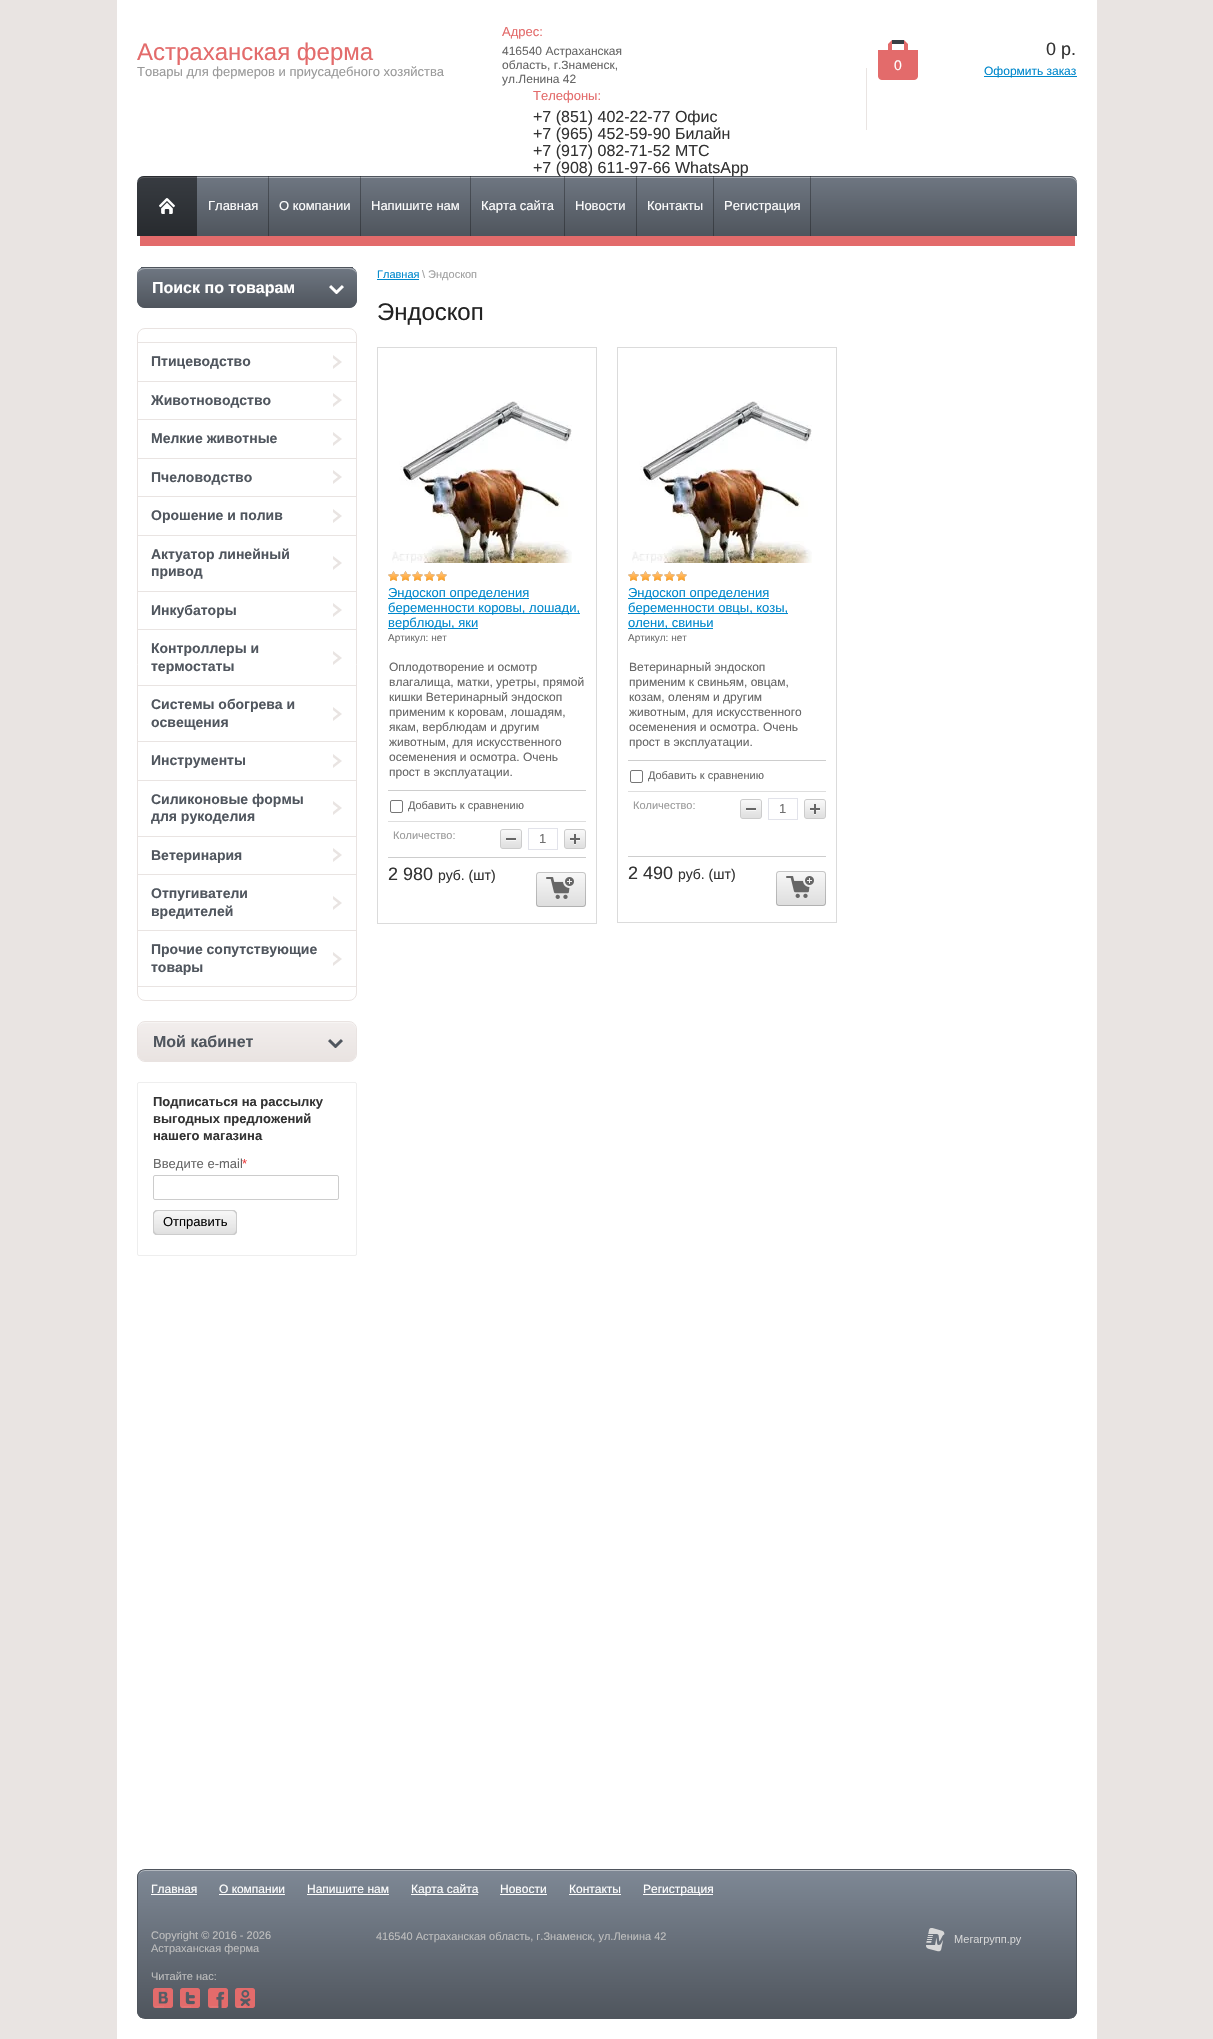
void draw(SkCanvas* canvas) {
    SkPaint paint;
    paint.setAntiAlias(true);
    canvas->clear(0xFFE9E4E2);
    paint.setColor(0xFFFFFFFF);
    canvas->drawRect(SkRect::MakeXYWH(117, 0, 980, 2039), paint);
    SkFont font1(fontMgr->matchFamilyStyle("Liberation Sans", SkFontStyle::Normal()), 24);
    font1.setSubpixel(true);
    paint.setColor(0xFFE36B6B);
    canvas->drawString("Астраханская ферма", 137, 60, font1, paint);
    SkFont font2(fontMgr->matchFamilyStyle("Liberation Sans", SkFontStyle::Normal()), 13);
    font2.setSubpixel(true);
    paint.setColor(0xFF999999);
    canvas->drawString("Товары для фермеров и приусадебного хозяйства", 137, 76, font2, paint);
    paint.setColor(0xFFE9E4E2);
    canvas->drawRect(SkRect::MakeXYWH(866, 68, 1, 62), paint);
    paint.setColor(0xFFE36B6B);
    canvas->drawString("Адрес:", 502, 36, font2, paint);
    SkFont font3(fontMgr->matchFamilyStyle("Liberation Sans", SkFontStyle::Normal()), 12);
    font3.setSubpixel(true);
    paint.setColor(0xFF666666);
    canvas->drawString("416540 Астраханская", 502, 55, font3, paint);
    canvas->drawString("область, г.Знаменск,", 502, 69, font3, paint);
    canvas->drawString("ул.Ленина 42", 502, 83, font3, paint);
    paint.setColor(0xFFE36B6B);
    canvas->drawString("Телефоны:", 533, 100, font2, paint);
    SkFont font4(fontMgr->matchFamilyStyle("Liberation Sans", SkFontStyle::Normal()), 16);
    font4.setSubpixel(true);
    paint.setColor(0xFF333333);
    canvas->drawString("+7 (851) 402-22-77 Офис", 533, 122, font4, paint);
    canvas->drawString("+7 (965) 452-59-90 Билайн", 533, 139, font4, paint);
    canvas->drawString("+7 (917) 082-71-52 МТС", 533, 156, font4, paint);
    canvas->drawString("+7 (908) 611-97-66 WhatsApp", 533, 173, font4, paint);
    canvas->drawImageRect(SkImages::DeferredFromEncodedData(SkData::MakeFromFileName("img1.png")), SkRect::MakeXYWH(878, 40, 40, 40), SkSamplingOptions());
    SkFont font5(fontMgr->matchFamilyStyle("Liberation Sans", SkFontStyle::Normal()), 14);
    font5.setSubpixel(true);
    paint.setColor(0xFFFFFFFF);
    canvas->drawString("0", 894, 70, font5, paint);
    SkFont font6(fontMgr->matchFamilyStyle("Liberation Sans", SkFontStyle::Normal()), 18);
    font6.setSubpixel(true);
    paint.setColor(0xFF333333);
    canvas->drawString("0 р.", 1046, 55, font6, paint);
    paint.setColor(0xFF0088CC);
    canvas->drawRect(SkRect::MakeXYWH(984, 76, 93, 1), paint);
    canvas->drawString("Оформить заказ", 984, 75, font3, paint);
    {
        const SkColor colors[] = {0xFF6F7782, 0xFF4F555D};
        const float stops[] = {0, 1};
        const SkPoint ends[] = {{607, 176}, {607, 236}};
        paint.setShader(SkGradientShader::MakeLinear(ends, colors, stops, 2, SkTileMode::kClamp));
        paint.setAlpha(255);
    }
    canvas->drawPath(SkPathBuilder().moveTo(144, 176).lineTo(1070, 176).cubicTo(1074, 176, 1077, 179, 1077, 183).lineTo(1077, 236).lineTo(137, 236).lineTo(137, 183).cubicTo(137, 179, 140, 176, 144, 176).close().detach(), paint);
    paint.setShader(nullptr);
    paint.setColor(0x66FFFFFF);
    canvas->drawPath(SkPathBuilder().moveTo(144, 178).lineTo(1070, 178).cubicTo(1074, 178, 1077, 181, 1077, 185).lineTo(1077, 183).cubicTo(1077, 179, 1074, 176, 1070, 176).lineTo(144, 176).cubicTo(140, 176, 137, 179, 137, 183).lineTo(137, 185).cubicTo(137, 181, 140, 178, 144, 178).close().detach(), paint);
    paint.setColor(0xFF4F555D);
    canvas->drawPath(SkPathBuilder().moveTo(144, 177).lineTo(1070, 177).cubicTo(1074, 177, 1077, 180, 1077, 184).cubicTo(1077, 180, 1075, 176, 1070, 176).lineTo(144, 176).cubicTo(139, 176, 137, 180, 137, 184).cubicTo(137, 180, 140, 177, 144, 177).close().detach(), paint);
    canvas->drawImageRect(SkImages::DeferredFromEncodedData(SkData::MakeFromFileName("img2.png")), SkRect::MakeXYWH(137, 176, 60, 60), SkSamplingOptions());
    paint.setColor(0x4D000000);
    canvas->drawRect(SkRect::MakeXYWH(268, 176, 1, 60), paint);
    paint.setColor(0xFFFFFFFF);
    canvas->drawString("Главная", 208, 210, font2, paint);
    paint.setColor(0x4D000000);
    canvas->drawRect(SkRect::MakeXYWH(360, 176, 1, 60), paint);
    paint.setColor(0xFFFFFFFF);
    canvas->drawString("О компании", 279, 210, font2, paint);
    paint.setColor(0x4D000000);
    canvas->drawRect(SkRect::MakeXYWH(470, 176, 1, 60), paint);
    paint.setColor(0xFFFFFFFF);
    canvas->drawString("Напишите нам", 371, 210, font2, paint);
    paint.setColor(0x4D000000);
    canvas->drawRect(SkRect::MakeXYWH(564, 176, 1, 60), paint);
    paint.setColor(0xFFFFFFFF);
    canvas->drawString("Карта сайта", 481, 210, font2, paint);
    paint.setColor(0x4D000000);
    canvas->drawRect(SkRect::MakeXYWH(636, 176, 1, 60), paint);
    paint.setColor(0xFFFFFFFF);
    canvas->drawString("Новости", 575, 210, font2, paint);
    paint.setColor(0x4D000000);
    canvas->drawRect(SkRect::MakeXYWH(713, 176, 1, 60), paint);
    paint.setColor(0xFFFFFFFF);
    canvas->drawString("Контакты", 647, 210, font2, paint);
    paint.setColor(0x4D000000);
    canvas->drawRect(SkRect::MakeXYWH(810, 176, 1, 60), paint);
    paint.setColor(0xFFFFFFFF);
    canvas->drawString("Регистрация", 724, 210, font2, paint);
    paint.setColor(0xFFE36B6B);
    canvas->drawRect(SkRect::MakeXYWH(140, 236, 935, 10), paint);
    paint.setColor(0xFF4F555D);
    canvas->drawRoundRect(SkRect::MakeXYWH(137, 267, 220, 41), 8, 8, paint);
    canvas->save();
    canvas->clipPath(SkPathBuilder().moveTo(145, 267).lineTo(349, 267).cubicTo(353.5f, 267, 357, 270.5f, 357, 275).lineTo(357, 300).cubicTo(357, 304.5f, 353.5f, 308, 349, 308).lineTo(145, 308).cubicTo(140.5f, 308, 137, 304.5f, 137, 300).lineTo(137, 275).cubicTo(137, 270.5f, 140.5f, 267, 145, 267).close().detach(), true);
    {
        const SkColor colors[] = {0xFF6F7782, 0xFF4F555D};
        const float stops[] = {0, 1};
        const SkPoint ends[] = {{247, 268}, {247, 308}};
        paint.setShader(SkGradientShader::MakeLinear(ends, colors, stops, 2, SkTileMode::kClamp));
        paint.setAlpha(255);
    }
    canvas->drawPath(SkPathBuilder().moveTo(137, 268).lineTo(357, 268).lineTo(357, 300).cubicTo(357, 304.5f, 353.5f, 308, 349, 308).lineTo(145, 308).cubicTo(140.5f, 308, 137, 304.5f, 137, 300).close().detach(), paint);
    canvas->restore();
    paint.setShader(nullptr);
    paint.setColor(0x66FFFFFF);
    canvas->drawPath(SkPathBuilder().moveTo(145, 269).lineTo(349, 269).cubicTo(353, 269, 357, 272, 357, 276).cubicTo(357, 272, 355, 269, 351, 268).lineTo(145, 268).cubicTo(140, 268, 137, 271, 137, 276).cubicTo(137, 272, 141, 269, 145, 269).close().detach(), paint);
    paint.setColor(0xFF4F555D);
    canvas->drawRect(SkRect::MakeXYWH(141, 267, 212, 1), paint);
    SkFont font7(fontMgr->matchFamilyStyle("Liberation Sans", SkFontStyle::Bold()), 16);
    font7.setSubpixel(true);
    paint.setColor(0xFFFFFFFF);
    canvas->drawString("Поиск по товарам", 152, 293, font7, paint);
    canvas->drawImageRect(SkImages::DeferredFromEncodedData(SkData::MakeFromFileName("img3.png")), SkRect::MakeXYWH(329, 285, 15, 9), SkSamplingOptions());
    paint.setStyle(SkPaint::kStroke_Style);
    paint.setStrokeWidth(1);
    paint.setColor(0xFFE9E3E1);
    canvas->drawRoundRect(SkRect::MakeXYWH(137.5f, 328.5f, 219, 672), 7.5f, 7.5f, paint);
    paint.setStyle(SkPaint::kFill_Style);
    paint.setColor(0xFFE9E4E2);
    canvas->drawRect(SkRect::MakeXYWH(138, 342, 218, 1), paint);
    canvas->drawRect(SkRect::MakeXYWH(138, 381, 218, 1), paint);
    canvas->drawPath(SkPathBuilder().moveTo(333, 369).lineTo(333, 355).lineTo(342, 362).close().detach(), paint);
    paint.setColor(0xFFFFFFFF);
    canvas->drawPath(SkPathBuilder().moveTo(329, 369).lineTo(329, 355).lineTo(338, 362).close().detach(), paint);
    SkFont font8(fontMgr->matchFamilyStyle("Liberation Sans", SkFontStyle::Bold()), 14);
    font8.setSubpixel(true);
    paint.setColor(0xFF50565E);
    canvas->drawString("Птицеводство", 151, 366, font8, paint);
    paint.setColor(0xFFE9E4E2);
    canvas->drawRect(SkRect::MakeXYWH(138, 419, 218, 1), paint);
    canvas->drawPath(SkPathBuilder().moveTo(333, 407).lineTo(333, 393).lineTo(342, 400).close().detach(), paint);
    paint.setColor(0xFFFFFFFF);
    canvas->drawPath(SkPathBuilder().moveTo(329, 407).lineTo(329, 393).lineTo(338, 400).close().detach(), paint);
    paint.setColor(0xFF50565E);
    canvas->drawString("Животноводство", 151, 405, font8, paint);
    paint.setColor(0xFFE9E4E2);
    canvas->drawRect(SkRect::MakeXYWH(138, 458, 218, 1), paint);
    canvas->drawPath(SkPathBuilder().moveTo(333, 446).lineTo(333, 432).lineTo(342, 439).close().detach(), paint);
    paint.setColor(0xFFFFFFFF);
    canvas->drawPath(SkPathBuilder().moveTo(329, 446).lineTo(329, 432).lineTo(338, 439).close().detach(), paint);
    paint.setColor(0xFF50565E);
    canvas->drawString("Мелкие животные", 151, 443, font8, paint);
    paint.setColor(0xFFE9E4E2);
    canvas->drawRect(SkRect::MakeXYWH(138, 496, 218, 1), paint);
    canvas->drawPath(SkPathBuilder().moveTo(333, 484).lineTo(333, 470).lineTo(342, 477).close().detach(), paint);
    paint.setColor(0xFFFFFFFF);
    canvas->drawPath(SkPathBuilder().moveTo(329, 484).lineTo(329, 470).lineTo(338, 477).close().detach(), paint);
    paint.setColor(0xFF50565E);
    canvas->drawString("Пчеловодство", 151, 482, font8, paint);
    paint.setColor(0xFFE9E4E2);
    canvas->drawRect(SkRect::MakeXYWH(138, 535, 218, 1), paint);
    canvas->drawPath(SkPathBuilder().moveTo(333, 523).lineTo(333, 509).lineTo(342, 516).close().detach(), paint);
    paint.setColor(0xFFFFFFFF);
    canvas->drawPath(SkPathBuilder().moveTo(329, 523).lineTo(329, 509).lineTo(338, 516).close().detach(), paint);
    paint.setColor(0xFF50565E);
    canvas->drawString("Орошение и полив", 151, 520, font8, paint);
    paint.setColor(0xFFE9E4E2);
    canvas->drawRect(SkRect::MakeXYWH(138, 591, 218, 1), paint);
    paint.setColor(0xFF50565E);
    canvas->drawString("Актуатор линейный", 151, 559, font8, paint);
    paint.setColor(0xFFE9E4E2);
    canvas->drawPath(SkPathBuilder().moveTo(333, 570).lineTo(333, 556).lineTo(342, 563).close().detach(), paint);
    paint.setColor(0xFFFFFFFF);
    canvas->drawPath(SkPathBuilder().moveTo(329, 570).lineTo(329, 556).lineTo(338, 563).close().detach(), paint);
    paint.setColor(0xFF50565E);
    canvas->drawString("привод", 151, 576, font8, paint);
    paint.setColor(0xFFE9E4E2);
    canvas->drawRect(SkRect::MakeXYWH(138, 629, 218, 1), paint);
    canvas->drawPath(SkPathBuilder().moveTo(333, 617).lineTo(333, 603).lineTo(342, 610).close().detach(), paint);
    paint.setColor(0xFFFFFFFF);
    canvas->drawPath(SkPathBuilder().moveTo(329, 617).lineTo(329, 603).lineTo(338, 610).close().detach(), paint);
    paint.setColor(0xFF50565E);
    canvas->drawString("Инкубаторы", 151, 615, font8, paint);
    paint.setColor(0xFFE9E4E2);
    canvas->drawRect(SkRect::MakeXYWH(138, 685, 218, 1), paint);
    paint.setColor(0xFF50565E);
    canvas->drawString("Контроллеры и", 151, 653, font8, paint);
    paint.setColor(0xFFE9E4E2);
    canvas->drawPath(SkPathBuilder().moveTo(333, 665).lineTo(333, 651).lineTo(342, 658).close().detach(), paint);
    paint.setColor(0xFFFFFFFF);
    canvas->drawPath(SkPathBuilder().moveTo(329, 665).lineTo(329, 651).lineTo(338, 658).close().detach(), paint);
    paint.setColor(0xFF50565E);
    canvas->drawString("термостаты", 151, 671, font8, paint);
    paint.setColor(0xFFE9E4E2);
    canvas->drawRect(SkRect::MakeXYWH(138, 741, 218, 1), paint);
    paint.setColor(0xFF50565E);
    canvas->drawString("Системы обогрева и", 151, 709, font8, paint);
    paint.setColor(0xFFE9E4E2);
    canvas->drawPath(SkPathBuilder().moveTo(333, 721).lineTo(333, 707).lineTo(342, 714).close().detach(), paint);
    paint.setColor(0xFFFFFFFF);
    canvas->drawPath(SkPathBuilder().moveTo(329, 721).lineTo(329, 707).lineTo(338, 714).close().detach(), paint);
    paint.setColor(0xFF50565E);
    canvas->drawString("освещения", 151, 727, font8, paint);
    paint.setColor(0xFFE9E4E2);
    canvas->drawRect(SkRect::MakeXYWH(138, 780, 218, 1), paint);
    canvas->drawPath(SkPathBuilder().moveTo(333, 768).lineTo(333, 754).lineTo(342, 761).close().detach(), paint);
    paint.setColor(0xFFFFFFFF);
    canvas->drawPath(SkPathBuilder().moveTo(329, 768).lineTo(329, 754).lineTo(338, 761).close().detach(), paint);
    paint.setColor(0xFF50565E);
    canvas->drawString("Инструменты", 151, 765, font8, paint);
    paint.setColor(0xFFE9E4E2);
    canvas->drawRect(SkRect::MakeXYWH(138, 836, 218, 1), paint);
    paint.setColor(0xFF50565E);
    canvas->drawString("Силиконовые формы", 151, 804, font8, paint);
    paint.setColor(0xFFE9E4E2);
    canvas->drawPath(SkPathBuilder().moveTo(333, 815).lineTo(333, 801).lineTo(342, 808).close().detach(), paint);
    paint.setColor(0xFFFFFFFF);
    canvas->drawPath(SkPathBuilder().moveTo(329, 815).lineTo(329, 801).lineTo(338, 808).close().detach(), paint);
    paint.setColor(0xFF50565E);
    canvas->drawString("для рукоделия", 151, 821, font8, paint);
    paint.setColor(0xFFE9E4E2);
    canvas->drawRect(SkRect::MakeXYWH(138, 874, 218, 1), paint);
    canvas->drawPath(SkPathBuilder().moveTo(333, 862).lineTo(333, 848).lineTo(342, 855).close().detach(), paint);
    paint.setColor(0xFFFFFFFF);
    canvas->drawPath(SkPathBuilder().moveTo(329, 862).lineTo(329, 848).lineTo(338, 855).close().detach(), paint);
    paint.setColor(0xFF50565E);
    canvas->drawString("Ветеринария", 151, 860, font8, paint);
    paint.setColor(0xFFE9E4E2);
    canvas->drawRect(SkRect::MakeXYWH(138, 930, 218, 1), paint);
    paint.setColor(0xFF50565E);
    canvas->drawString("Отпугиватели", 151, 898, font8, paint);
    paint.setColor(0xFFE9E4E2);
    canvas->drawPath(SkPathBuilder().moveTo(333, 910).lineTo(333, 896).lineTo(342, 903).close().detach(), paint);
    paint.setColor(0xFFFFFFFF);
    canvas->drawPath(SkPathBuilder().moveTo(329, 910).lineTo(329, 896).lineTo(338, 903).close().detach(), paint);
    paint.setColor(0xFF50565E);
    canvas->drawString("вредителей", 151, 916, font8, paint);
    paint.setColor(0xFFE9E4E2);
    canvas->drawRect(SkRect::MakeXYWH(138, 986, 218, 1), paint);
    paint.setColor(0xFF50565E);
    canvas->drawString("Прочие сопутствующие", 151, 954, font8, paint);
    paint.setColor(0xFFE9E4E2);
    canvas->drawPath(SkPathBuilder().moveTo(333, 966).lineTo(333, 952).lineTo(342, 959).close().detach(), paint);
    paint.setColor(0xFFFFFFFF);
    canvas->drawPath(SkPathBuilder().moveTo(329, 966).lineTo(329, 952).lineTo(338, 959).close().detach(), paint);
    paint.setColor(0xFF50565E);
    canvas->drawString("товары", 151, 972, font8, paint);
    {
        const SkColor colors[] = {0xFFF2EEED, 0xFFE9E3E1};
        const float stops[] = {0, 1};
        const SkPoint ends[] = {{247, 1022}, {247, 1061}};
        paint.setShader(SkGradientShader::MakeLinear(ends, colors, stops, 2, SkTileMode::kClamp));
        paint.setAlpha(255);
    }
    canvas->drawRoundRect(SkRect::MakeXYWH(138, 1022, 218, 39), 7, 7, paint);
    paint.setShader(nullptr);
    paint.setColor(0x66FFFFFF);
    canvas->drawPath(SkPathBuilder().moveTo(145, 1023).lineTo(349, 1023).cubicTo(353, 1023, 356, 1026, 356, 1030).lineTo(356, 1029).cubicTo(356, 1025, 353, 1022, 349, 1022).lineTo(145, 1022).cubicTo(141, 1022, 138, 1025, 138, 1029).lineTo(138, 1030).cubicTo(138, 1026, 141, 1023, 145, 1023).close().detach(), paint);
    paint.setStyle(SkPaint::kStroke_Style);
    paint.setColor(0xFFE9E3E1);
    canvas->drawRoundRect(SkRect::MakeXYWH(137.5f, 1021.5f, 219, 40), 7.5f, 7.5f, paint);
    paint.setStyle(SkPaint::kFill_Style);
    paint.setColor(0xFF50565E);
    canvas->drawString("Мой кабинет", 153, 1047, font7, paint);
    canvas->drawImageRect(SkImages::DeferredFromEncodedData(SkData::MakeFromFileName("img4.png")), SkRect::MakeXYWH(328, 1039, 15, 9), SkSamplingOptions());
    paint.setStyle(SkPaint::kStroke_Style);
    paint.setColor(0xFFEEEEEE);
    canvas->drawRoundRect(SkRect::MakeXYWH(137.5f, 1082.5f, 219, 173), 1.5f, 1.5f, paint);
    SkFont font9(fontMgr->matchFamilyStyle("Liberation Sans", SkFontStyle::Bold()), 13);
    font9.setSubpixel(true);
    paint.setStyle(SkPaint::kFill_Style);
    paint.setColor(0xFF333333);
    canvas->drawString("Подписаться на рассылку", 153, 1106, font9, paint);
    canvas->drawString("выгодных предложений", 153, 1123, font9, paint);
    canvas->drawString("нашего магазина", 153, 1140, font9, paint);
    paint.setColor(0xFF666666);
    canvas->drawString("Введите e-mail", 153, 1168, font2, paint);
    paint.setColor(0xFFEB3C3C);
    canvas->drawString("*", 242, 1168, font2, paint);
    paint.setStyle(SkPaint::kStroke_Style);
    paint.setColor(0xFFCCCCCC);
    canvas->drawRoundRect(SkRect::MakeXYWH(153.5f, 1175.5f, 185, 24), 1.5f, 1.5f, paint);
    paint.setStyle(SkPaint::kFill_Style);
    {
        const SkColor colors[] = {0xFFF8F8F8, 0xFFDFDFDF};
        const float stops[] = {0, 1};
        const SkPoint ends[] = {{195, 1210}, {195, 1235}};
        paint.setShader(SkGradientShader::MakeLinear(ends, colors, stops, 2, SkTileMode::kClamp));
        paint.setAlpha(255);
    }
    canvas->drawRoundRect(SkRect::MakeXYWH(153, 1210, 84, 25), 4, 4, paint);
    paint.setShader(nullptr);
    paint.setColor(0xFFCCCCCC);
    canvas->drawPath(SkPathBuilder().moveTo(155, 1211).cubicTo(154, 1211, 153, 1213, 153, 1214).lineTo(153, 1231).cubicTo(153, 1233, 155, 1235, 157, 1235).lineTo(233, 1235).cubicTo(234, 1235, 236, 1234, 236, 1233).lineTo(234, 1234).lineTo(158, 1234).cubicTo(156, 1234, 154, 1232, 154, 1230).lineTo(154, 1213).close().detach(), paint);
    canvas->drawPath(SkPathBuilder().moveTo(156, 1211).lineTo(232, 1211).cubicTo(234, 1211, 236, 1213, 236, 1215).lineTo(236, 1232).lineTo(235, 1234).cubicTo(236, 1234, 237, 1232, 237, 1231).lineTo(237, 1214).cubicTo(237, 1212, 235, 1210, 233, 1210).lineTo(157, 1210).cubicTo(156, 1210, 154, 1211, 154, 1212).close().detach(), paint);
    canvas->drawPath(SkPathBuilder().moveTo(154, 1233).cubicTo(154, 1234, 156, 1235, 157, 1235).lineTo(233, 1235).cubicTo(235, 1235, 237, 1233, 237, 1231).lineTo(237, 1214).cubicTo(237, 1213, 236, 1211, 235, 1211).lineTo(236, 1213).lineTo(236, 1230).cubicTo(236, 1232, 234, 1234, 232, 1234).lineTo(156, 1234).close().detach(), paint);
    canvas->drawPath(SkPathBuilder().moveTo(158, 1211).lineTo(234, 1211).lineTo(236, 1212).cubicTo(236, 1211, 234, 1210, 233, 1210).lineTo(157, 1210).cubicTo(155, 1210, 153, 1212, 153, 1214).lineTo(153, 1231).cubicTo(153, 1232, 154, 1234, 155, 1234).cubicTo(153, 1232, 154, 1226, 154, 1224).cubicTo(154, 1220, 152, 1211, 158, 1211).close().detach(), paint);
    paint.setColor(0xFF040404);
    canvas->drawString("Отправить", 163, 1226, font2, paint);
    SkFont font10(fontMgr->matchFamilyStyle("Liberation Sans", SkFontStyle::Normal()), 11);
    font10.setSubpixel(true);
    paint.setColor(0xFF0088CC);
    canvas->drawString("Главная", 377, 278, font10, paint);
    canvas->drawRect(SkRect::MakeXYWH(377, 279, 42, 1), paint);
    paint.setColor(0xFFA0A0A0);
    canvas->drawString("\\ Эндоскоп", 422, 278, font10, paint);
    paint.setColor(0xFF222222);
    canvas->drawString("Эндоскоп", 377, 320, font1, paint);
    paint.setColor(0xFFDBDBDB);
    canvas->drawRect(SkRect::MakeXYWH(377, 347, 220, 1), paint);
    canvas->drawRect(SkRect::MakeXYWH(596, 857, 1, 67), paint);
    canvas->drawRect(SkRect::MakeXYWH(596, 347, 1, 515), paint);
    canvas->drawRect(SkRect::MakeXYWH(377, 923, 220, 1), paint);
    canvas->drawRect(SkRect::MakeXYWH(377, 857, 1, 67), paint);
    canvas->drawRect(SkRect::MakeXYWH(377, 347, 1, 515), paint);
    canvas->drawImageRect(SkImages::DeferredFromEncodedData(SkData::MakeFromFileName("img5.png")), SkRect::MakeXYWH(392, 401, 180, 162), SkSamplingOptions());
    canvas->drawImageRect(SkImages::DeferredFromEncodedData(SkData::MakeFromFileName("img6.png")), SkRect::MakeXYWH(388, 571, 59, 10), SkSamplingOptions());
    canvas->drawImageRect(SkImages::DeferredFromEncodedData(SkData::MakeFromFileName("img7.png")), SkRect::MakeXYWH(388, 571, 59, 10), SkSamplingOptions());
    paint.setColor(0xFF0088CC);
    canvas->drawRect(SkRect::MakeXYWH(388, 598, 141, 1), paint);
    canvas->drawString("Эндоскоп определения", 388, 597, font2, paint);
    canvas->drawRect(SkRect::MakeXYWH(388, 613, 192, 1), paint);
    canvas->drawString("беременности коровы, лошади,", 388, 612, font2, paint);
    canvas->drawRect(SkRect::MakeXYWH(388, 628, 90, 1), paint);
    canvas->drawString("верблюды, яки", 388, 627, font2, paint);
    SkFont font11(fontMgr->matchFamilyStyle("Liberation Sans", SkFontStyle::Normal()), 10);
    font11.setSubpixel(true);
    paint.setColor(0xFF707070);
    canvas->drawString("Артикул: нет", 388, 641, font11, paint);
    paint.setColor(0xFFCDCDCD);
    canvas->drawRect(SkRect::MakeXYWH(388, 790, 198, 1), paint);
    paint.setColor(0xFF666666);
    canvas->drawString("Оплодотворение и осмотр", 389, 671, font3, paint);
    canvas->drawString("влагалища, матки, уретры, прямой", 389, 686, font3, paint);
    canvas->drawString("кишки Ветеринарный эндоскоп", 389, 701, font3, paint);
    canvas->drawString("применим к коровам, лошадям,", 389, 716, font3, paint);
    canvas->drawString("якам, верблюдам и другим", 389, 731, font3, paint);
    canvas->drawString("животным, для искусственного", 389, 746, font3, paint);
    canvas->drawString("осеменения и осмотра. Очень", 389, 761, font3, paint);
    canvas->drawString("прост в эксплуатации.", 389, 776, font3, paint);
    paint.setColor(0xFFDEDEDE);
    canvas->drawRect(SkRect::MakeXYWH(388, 821, 198, 1), paint);
    paint.setStyle(SkPaint::kStroke_Style);
    paint.setColor(0xFF767676);
    canvas->drawRoundRect(SkRect::MakeXYWH(390.5f, 800.5f, 12, 12), 1.5f, 1.5f, paint);
    paint.setStyle(SkPaint::kFill_Style);
    paint.setColor(0xFF666666);
    canvas->drawString("Добавить к сравнению", 408, 809, font10, paint);
    paint.setColor(0xFF999999);
    canvas->drawString("Количество:", 393, 839, font10, paint);
    canvas->drawImageRect(SkImages::DeferredFromEncodedData(SkData::MakeFromFileName("img8.png")), SkRect::MakeXYWH(500, 829, 22, 20), SkSamplingOptions());
    paint.setStyle(SkPaint::kStroke_Style);
    paint.setColor(0xFFE2E3EA);
    canvas->drawRect(SkRect::MakeXYWH(528.5f, 828.5f, 29, 21), paint);
    paint.setStyle(SkPaint::kFill_Style);
    paint.setColor(0xFF707070);
    canvas->drawString("1", 539, 843, font2, paint);
    canvas->drawImageRect(SkImages::DeferredFromEncodedData(SkData::MakeFromFileName("img9.png")), SkRect::MakeXYWH(564, 829, 22, 20), SkSamplingOptions());
    paint.setColor(0xFFCDCDCD);
    canvas->drawRect(SkRect::MakeXYWH(388, 857, 198, 1), paint);
    paint.setColor(0xFF333333);
    canvas->drawString("2 980", 388, 880, font6, paint);
    canvas->drawString("руб. (шт)", 438, 880, font5, paint);
    {
        const SkColor colors[] = {0xFFF8F8F8, 0xFFDDDDDD};
        const float stops[] = {0, 1};
        const SkPoint ends[] = {{561, 872}, {561, 907}};
        paint.setShader(SkGradientShader::MakeLinear(ends, colors, stops, 2, SkTileMode::kClamp));
        paint.setAlpha(255);
    }
    canvas->drawRoundRect(SkRect::MakeXYWH(536, 872, 50, 35), 3, 3, paint);
    paint.setStyle(SkPaint::kStroke_Style);
    paint.setShader(nullptr);
    paint.setColor(0x33000000);
    canvas->drawRoundRect(SkRect::MakeXYWH(536.5f, 872.5f, 49, 34), 2.5f, 2.5f, paint);
    canvas->drawImageRect(SkImages::DeferredFromEncodedData(SkData::MakeFromFileName("img10.png")), SkRect::MakeXYWH(546, 877, 28, 22), SkSamplingOptions());
    paint.setStyle(SkPaint::kFill_Style);
    paint.setColor(0xFFDBDBDB);
    canvas->drawRect(SkRect::MakeXYWH(617, 347, 220, 1), paint);
    canvas->drawRect(SkRect::MakeXYWH(836, 856, 1, 67), paint);
    canvas->drawRect(SkRect::MakeXYWH(836, 347, 1, 514), paint);
    canvas->drawRect(SkRect::MakeXYWH(617, 922, 220, 1), paint);
    canvas->drawRect(SkRect::MakeXYWH(617, 856, 1, 67), paint);
    canvas->drawRect(SkRect::MakeXYWH(617, 347, 1, 514), paint);
    canvas->drawImageRect(SkImages::DeferredFromEncodedData(SkData::MakeFromFileName("img5.png")), SkRect::MakeXYWH(632, 401, 180, 162), SkSamplingOptions());
    canvas->drawImageRect(SkImages::DeferredFromEncodedData(SkData::MakeFromFileName("img6.png")), SkRect::MakeXYWH(628, 571, 59, 10), SkSamplingOptions());
    canvas->drawImageRect(SkImages::DeferredFromEncodedData(SkData::MakeFromFileName("img7.png")), SkRect::MakeXYWH(628, 571, 59, 10), SkSamplingOptions());
    paint.setColor(0xFF0088CC);
    canvas->drawRect(SkRect::MakeXYWH(628, 598, 141, 1), paint);
    canvas->drawString("Эндоскоп определения", 628, 597, font2, paint);
    canvas->drawRect(SkRect::MakeXYWH(628, 613, 160, 1), paint);
    canvas->drawString("беременности овцы, козы,", 628, 612, font2, paint);
    canvas->drawRect(SkRect::MakeXYWH(628, 628, 85, 1), paint);
    canvas->drawString("олени, свиньи", 628, 627, font2, paint);
    paint.setColor(0xFF707070);
    canvas->drawString("Артикул: нет", 628, 641, font11, paint);
    paint.setColor(0xFFCDCDCD);
    canvas->drawRect(SkRect::MakeXYWH(628, 760, 198, 1), paint);
    paint.setColor(0xFF666666);
    canvas->drawString("Ветеринарный эндоскоп", 629, 671, font3, paint);
    canvas->drawString("применим к свиньям, овцам,", 629, 686, font3, paint);
    canvas->drawString("козам, оленям и другим", 629, 701, font3, paint);
    canvas->drawString("животным, для искусственного", 629, 716, font3, paint);
    canvas->drawString("осеменения и осмотра. Очень", 629, 731, font3, paint);
    canvas->drawString("прост в эксплуатации.", 629, 746, font3, paint);
    paint.setColor(0xFFDEDEDE);
    canvas->drawRect(SkRect::MakeXYWH(628, 791, 198, 1), paint);
    paint.setStyle(SkPaint::kStroke_Style);
    paint.setColor(0xFF767676);
    canvas->drawRoundRect(SkRect::MakeXYWH(630.5f, 770.5f, 12, 12), 1.5f, 1.5f, paint);
    paint.setStyle(SkPaint::kFill_Style);
    paint.setColor(0xFF666666);
    canvas->drawString("Добавить к сравнению", 648, 779, font10, paint);
    paint.setColor(0xFF999999);
    canvas->drawString("Количество:", 633, 809, font10, paint);
    canvas->drawImageRect(SkImages::DeferredFromEncodedData(SkData::MakeFromFileName("img8.png")), SkRect::MakeXYWH(740, 799, 22, 20), SkSamplingOptions());
    paint.setStyle(SkPaint::kStroke_Style);
    paint.setColor(0xFFE2E3EA);
    canvas->drawRect(SkRect::MakeXYWH(768.5f, 798.5f, 29, 21), paint);
    paint.setStyle(SkPaint::kFill_Style);
    paint.setColor(0xFF707070);
    canvas->drawString("1", 779, 813, font2, paint);
    canvas->drawImageRect(SkImages::DeferredFromEncodedData(SkData::MakeFromFileName("img9.png")), SkRect::MakeXYWH(804, 799, 22, 20), SkSamplingOptions());
    paint.setColor(0xFFCDCDCD);
    canvas->drawRect(SkRect::MakeXYWH(628, 856, 198, 1), paint);
    paint.setColor(0xFF333333);
    canvas->drawString("2 490", 628, 879, font6, paint);
    canvas->drawString("руб. (шт)", 678, 879, font5, paint);
    {
        const SkColor colors[] = {0xFFF8F8F8, 0xFFDDDDDD};
        const float stops[] = {0, 1};
        const SkPoint ends[] = {{801, 871}, {801, 906}};
        paint.setShader(SkGradientShader::MakeLinear(ends, colors, stops, 2, SkTileMode::kClamp));
        paint.setAlpha(255);
    }
    canvas->drawRoundRect(SkRect::MakeXYWH(776, 871, 50, 35), 3, 3, paint);
    paint.setStyle(SkPaint::kStroke_Style);
    paint.setShader(nullptr);
    paint.setColor(0x33000000);
    canvas->drawRoundRect(SkRect::MakeXYWH(776.5f, 871.5f, 49, 34), 2.5f, 2.5f, paint);
    canvas->drawImageRect(SkImages::DeferredFromEncodedData(SkData::MakeFromFileName("img10.png")), SkRect::MakeXYWH(786, 876, 28, 22), SkSamplingOptions());
    canvas->save();
    canvas->clipPath(SkPathBuilder().moveTo(145, 1869).lineTo(1069, 1869).cubicTo(1073.5f, 1869, 1077, 1872.5f, 1077, 1877).lineTo(1077, 2011).cubicTo(1077, 2015.5f, 1073.5f, 2019, 1069, 2019).lineTo(145, 2019).cubicTo(140.5f, 2019, 137, 2015.5f, 137, 2011).lineTo(137, 1877).cubicTo(137, 1872.5f, 140.5f, 1869, 145, 1869).close().detach(), true);
    paint.setStyle(SkPaint::kFill_Style);
    {
        const SkColor colors[] = {0xFF7E8895, 0xFF4F555D};
        const float stops[] = {0, 1};
        const SkPoint ends[] = {{607, 1870}, {607, 2018}};
        paint.setShader(SkGradientShader::MakeLinear(ends, colors, stops, 2, SkTileMode::kClamp));
        paint.setAlpha(255);
    }
    canvas->drawRect(SkRect::MakeXYWH(137, 1870, 940, 148), paint);
    canvas->restore();
    paint.setShader(nullptr);
    paint.setColor(0xFFB2B8BF);
    canvas->drawPath(SkPathBuilder().moveTo(145, 1871).lineTo(1069, 1871).cubicTo(1073, 1871, 1076, 1874, 1076, 1878).cubicTo(1076, 1874, 1074, 1870, 1069, 1870).lineTo(145, 1870).cubicTo(140, 1870, 138, 1874, 138, 1878).cubicTo(138, 1874, 141, 1871, 145, 1871).close().detach(), paint);
    paint.setStyle(SkPaint::kStroke_Style);
    paint.setColor(0xFF4F555D);
    canvas->drawRoundRect(SkRect::MakeXYWH(137.5f, 1869.5f, 939, 149), 7.5f, 7.5f, paint);
    paint.setStyle(SkPaint::kFill_Style);
    paint.setColor(0xFFFFFFFF);
    canvas->drawString("Главная", 151, 1893, font3, paint);
    canvas->drawRect(SkRect::MakeXYWH(151, 1894, 46, 1), paint);
    canvas->drawString("О компании", 219, 1893, font3, paint);
    canvas->drawRect(SkRect::MakeXYWH(219, 1894, 66, 1), paint);
    canvas->drawString("Напишите нам", 307, 1893, font3, paint);
    canvas->drawRect(SkRect::MakeXYWH(307, 1894, 82, 1), paint);
    canvas->drawRect(SkRect::MakeXYWH(411, 1894, 67, 1), paint);
    canvas->drawString("Карта сайта", 411, 1893, font3, paint);
    canvas->drawString("Новости", 500, 1893, font3, paint);
    canvas->drawRect(SkRect::MakeXYWH(500, 1894, 47, 1), paint);
    canvas->drawString("Контакты", 569, 1893, font3, paint);
    canvas->drawRect(SkRect::MakeXYWH(569, 1894, 52, 1), paint);
    canvas->drawRect(SkRect::MakeXYWH(643, 1894, 70, 1), paint);
    canvas->drawString("Регистрация", 643, 1893, font3, paint);
    paint.setColor(0xFFBEBEBE);
    canvas->drawString("Copyright © 2016 - 2026", 151, 1939, font10, paint);
    canvas->drawString("Астраханская ферма", 151, 1952, font10, paint);
    canvas->drawString("Читайте нас:", 151, 1980, font10, paint);
    canvas->drawImageRect(SkImages::DeferredFromEncodedData(SkData::MakeFromFileName("img11.png")), SkRect::MakeXYWH(153, 1988, 20, 20), SkSamplingOptions());
    canvas->drawImageRect(SkImages::DeferredFromEncodedData(SkData::MakeFromFileName("img12.png")), SkRect::MakeXYWH(180, 1988, 20, 20), SkSamplingOptions());
    canvas->drawImageRect(SkImages::DeferredFromEncodedData(SkData::MakeFromFileName("img13.png")), SkRect::MakeXYWH(208, 1988, 20, 20), SkSamplingOptions());
    canvas->drawImageRect(SkImages::DeferredFromEncodedData(SkData::MakeFromFileName("img14.png")), SkRect::MakeXYWH(235, 1988, 20, 20), SkSamplingOptions());
    canvas->drawString("416540 Астраханская область, г.Знаменск, ул.Ленина 42", 376, 1940, font10, paint);
    canvas->drawImageRect(SkImages::DeferredFromEncodedData(SkData::MakeFromFileName("img15.png")), SkRect::MakeXYWH(926, 1928, 96, 24), SkSamplingOptions());
}
